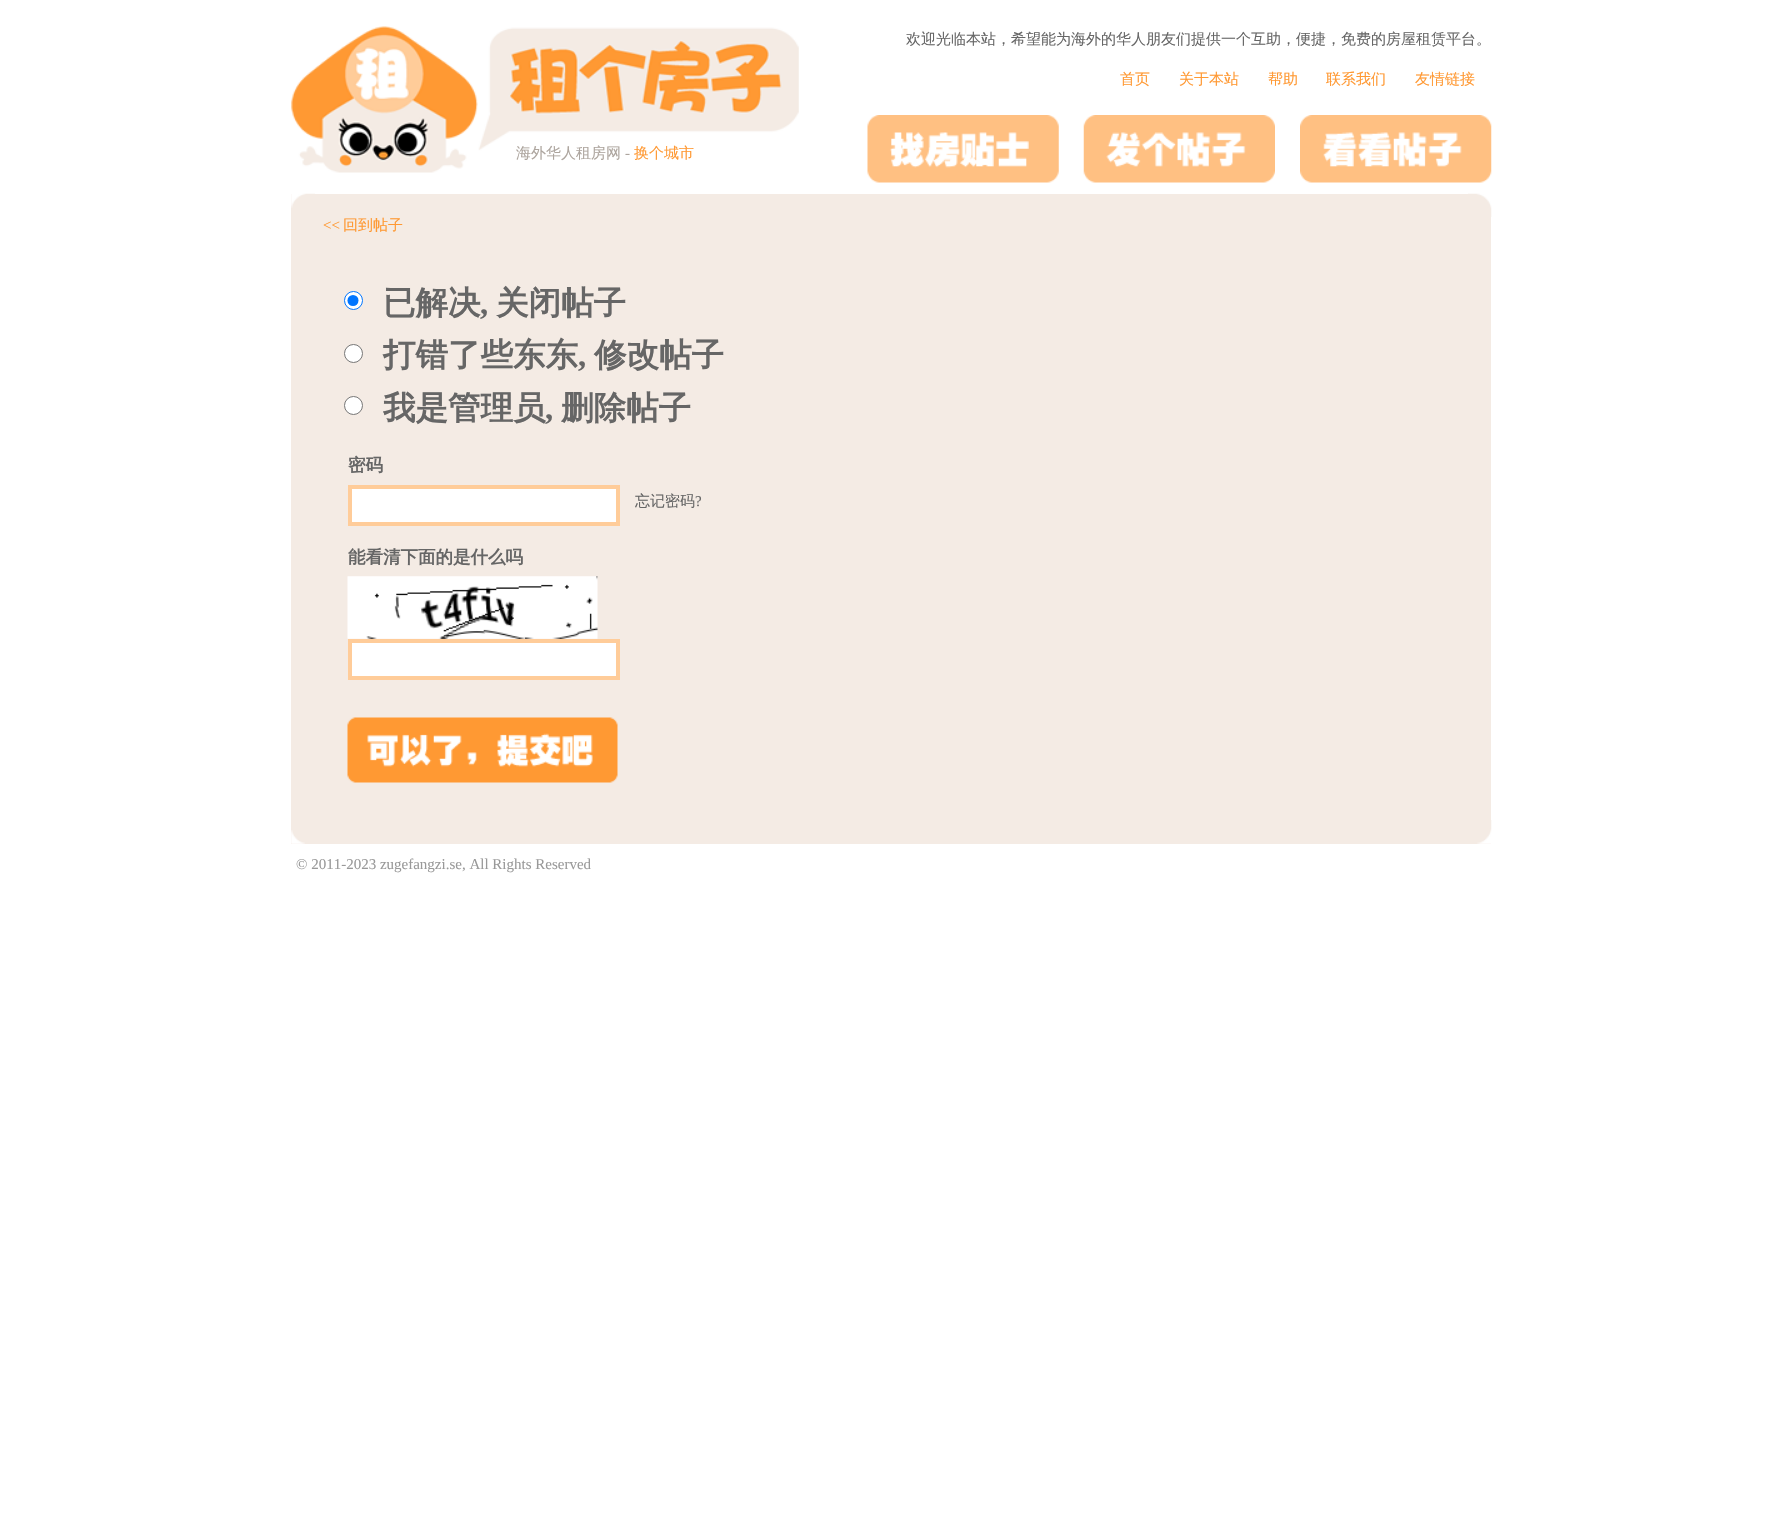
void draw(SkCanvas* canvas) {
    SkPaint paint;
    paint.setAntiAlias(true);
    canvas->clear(0xFFFFFFFF);
    canvas->drawImageRect(SkImages::DeferredFromEncodedData(SkData::MakeFromFileName("img1.png")), SkRect::MakeXYWH(291, 26, 508, 147), SkSamplingOptions());
    SkFont font1(fontMgr->matchFamilyStyle("WenQuanYi Zen Hei", SkFontStyle(500, SkFontStyle::kNormal_Width, SkFontStyle::kUpright_Slant)), 15);
    font1.setSubpixel(true);
    paint.setColor(0xFF666666);
    canvas->drawString("欢迎光临本站，希望能为海外的华人朋友们提供一个互助，便捷，免费的房屋租赁平台。", 906, 44, font1, paint);
    paint.setColor(0xFFFF9933);
    canvas->drawString("首页", 1120, 84, font1, paint);
    canvas->drawString("关于本站", 1179, 84, font1, paint);
    canvas->drawString("帮助", 1268, 84, font1, paint);
    canvas->drawString("联系我们", 1326, 84, font1, paint);
    canvas->drawString("友情链接", 1415, 84, font1, paint);
    canvas->drawImageRect(SkImages::DeferredFromEncodedData(SkData::MakeFromFileName("img2.png")), SkRect::MakeXYWH(867, 115, 192, 68), SkSamplingOptions());
    canvas->drawImageRect(SkImages::DeferredFromEncodedData(SkData::MakeFromFileName("img3.png")), SkRect::MakeXYWH(1083, 115, 192, 68), SkSamplingOptions());
    canvas->drawImageRect(SkImages::DeferredFromEncodedData(SkData::MakeFromFileName("img4.png")), SkRect::MakeXYWH(1300, 115, 192, 68), SkSamplingOptions());
    paint.setColor(0xFFADA59E);
    canvas->drawString("海外华人租房网", 516, 158, font1, paint);
    SkFont font2(fontMgr->matchFamilyStyle("Liberation Serif", SkFontStyle::Normal()), 15);
    font2.setSubpixel(true);
    canvas->drawString("-", 625, 158, font2, paint);
    paint.setColor(0xFFFF9933);
    canvas->drawString("换个城市", 634, 158, font1, paint);
    paint.setColor(0xFFF4EBE4);
    canvas->drawRect(SkRect::MakeXYWH(291, 194, 1200, 650), paint);
    canvas->drawImageRect(SkImages::DeferredFromEncodedData(SkData::MakeFromFileName("img5.png")), SkRect::MakeXYWH(291, 193, 24, 15), SkSamplingOptions());
    canvas->drawImageRect(SkImages::DeferredFromEncodedData(SkData::MakeFromFileName("img6.png")), SkRect::MakeXYWH(1468, 193, 24, 24), SkSamplingOptions());
    paint.setColor(0xFFFF9933);
    canvas->drawString("<<", 323, 230, font2, paint);
    canvas->drawString("回到帖子", 343, 230, font1, paint);
    paint.setColor(0xFFFFFFFF);
    canvas->drawCircle(353.5f, 300.5f, 9, paint);
    paint.setStyle(SkPaint::kStroke_Style);
    paint.setStrokeWidth(1);
    paint.setColor(0xFF0075FF);
    canvas->drawCircle(353.5f, 300.5f, 9, paint);
    paint.setStyle(SkPaint::kFill_Style);
    canvas->drawCircle(353, 300.5f, 5.5f, paint);
    SkFont font3(fontMgr->matchFamilyStyle("WenQuanYi Zen Hei", SkFontStyle::Bold()), 32.5f);
    font3.setSubpixel(true);
    paint.setColor(0xFF666666);
    canvas->drawString("已解决", 383, 314, font3, paint);
    canvas->drawString("关闭帖子", 496, 314, font3, paint);
    SkFont font4(fontMgr->matchFamilyStyle("Liberation Serif", SkFontStyle::Bold()), 32.5f);
    font4.setSubpixel(true);
    canvas->drawString(",", 480, 314, font4, paint);
    paint.setColor(0xFFFFFFFF);
    canvas->drawCircle(353.5f, 353.5f, 9, paint);
    paint.setStyle(SkPaint::kStroke_Style);
    paint.setColor(0xFF767676);
    canvas->drawCircle(353.5f, 353.5f, 9, paint);
    paint.setStyle(SkPaint::kFill_Style);
    paint.setColor(0xFF666666);
    canvas->drawString("打错了些东东", 383, 366, font3, paint);
    canvas->drawString("修改帖子", 594, 366, font3, paint);
    canvas->drawString(",", 578, 366, font4, paint);
    paint.setColor(0xFFFFFFFF);
    canvas->drawCircle(353.5f, 405.5f, 9, paint);
    paint.setStyle(SkPaint::kStroke_Style);
    paint.setColor(0xFF767676);
    canvas->drawCircle(353.5f, 405.5f, 9, paint);
    paint.setStyle(SkPaint::kFill_Style);
    paint.setColor(0xFF666666);
    canvas->drawString("我是管理员", 383, 419, font3, paint);
    canvas->drawString("删除帖子", 561, 419, font3, paint);
    canvas->drawString(",", 545, 419, font4, paint);
    SkFont font5(fontMgr->matchFamilyStyle("WenQuanYi Zen Hei", SkFontStyle::Bold()), 17.5f);
    font5.setSubpixel(true);
    canvas->drawString("密码", 348, 471, font5, paint);
    paint.setColor(0xFFFFFFFF);
    canvas->drawRect(SkRect::MakeXYWH(350, 487, 268, 37), paint);
    paint.setStyle(SkPaint::kStroke_Style);
    paint.setStrokeWidth(4);
    paint.setColor(0xFFFFCC99);
    canvas->drawRect(SkRect::MakeXYWH(350, 487, 268, 37), paint);
    paint.setStyle(SkPaint::kFill_Style);
    paint.setColor(0xFF666666);
    canvas->drawString("忘记密码", 635, 506, font1, paint);
    canvas->drawString("?", 695, 506, font2, paint);
    canvas->drawString("能看清下面的是什么吗", 348, 563, font5, paint);
    canvas->drawImageRect(SkImages::DeferredFromEncodedData(SkData::MakeFromFileName("img7.png")), SkRect::MakeXYWH(347, 576, 251, 63), SkSamplingOptions());
    paint.setColor(0xFFFFFFFF);
    canvas->drawRect(SkRect::MakeXYWH(350, 641, 268, 37), paint);
    paint.setStyle(SkPaint::kStroke_Style);
    paint.setColor(0xFFFFCC99);
    canvas->drawRect(SkRect::MakeXYWH(350, 641, 268, 37), paint);
    canvas->drawImageRect(SkImages::DeferredFromEncodedData(SkData::MakeFromFileName("img8.png")), SkRect::MakeXYWH(347, 717, 271, 66), SkSamplingOptions());
    canvas->drawImageRect(SkImages::DeferredFromEncodedData(SkData::MakeFromFileName("img9.png")), SkRect::MakeXYWH(291, 830, 14, 14), SkSamplingOptions());
    canvas->drawImageRect(SkImages::DeferredFromEncodedData(SkData::MakeFromFileName("img10.png")), SkRect::MakeXYWH(1477, 820, 15, 24), SkSamplingOptions());
    paint.setStyle(SkPaint::kFill_Style);
    paint.setColor(0xFF999999);
    canvas->drawString("© 2011-2023 zugefangzi.se, All Rights Reserved", 296, 869, font2, paint);
}
